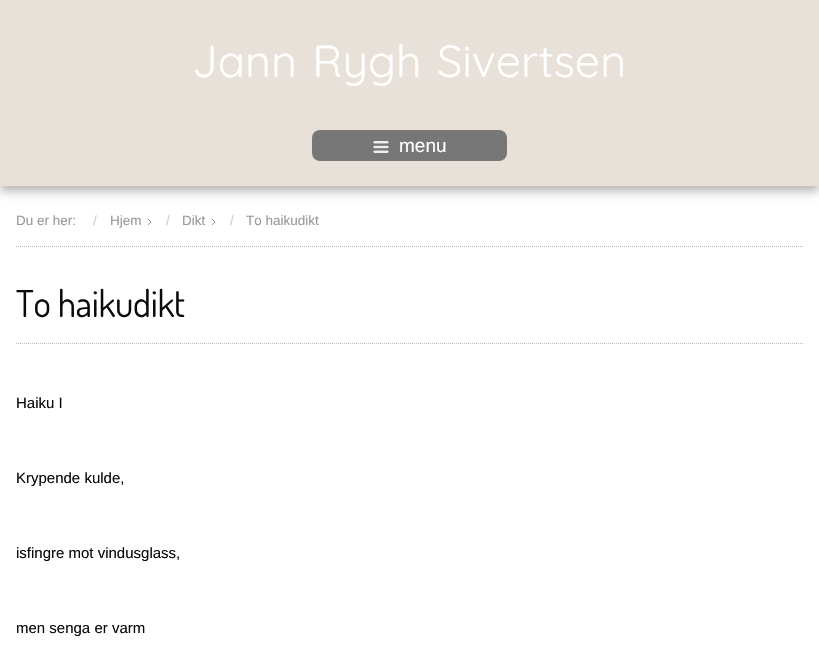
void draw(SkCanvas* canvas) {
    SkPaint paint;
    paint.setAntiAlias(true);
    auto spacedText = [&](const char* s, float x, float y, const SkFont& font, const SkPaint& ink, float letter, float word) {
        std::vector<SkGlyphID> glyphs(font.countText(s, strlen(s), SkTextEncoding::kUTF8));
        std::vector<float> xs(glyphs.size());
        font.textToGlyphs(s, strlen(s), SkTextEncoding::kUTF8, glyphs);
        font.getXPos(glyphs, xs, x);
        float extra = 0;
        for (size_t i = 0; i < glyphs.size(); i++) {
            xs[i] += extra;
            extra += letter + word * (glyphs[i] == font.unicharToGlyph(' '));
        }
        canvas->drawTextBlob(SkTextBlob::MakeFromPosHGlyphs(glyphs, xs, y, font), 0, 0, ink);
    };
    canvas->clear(0xFFFFFFFF);
    paint.setColor(0x4D000000);
    paint.setMaskFilter(SkMaskFilter::MakeBlur(kNormal_SkBlurStyle, 5));
    canvas->drawRect(SkRect::MakeXYWH(0, 5, 819, 186), paint);
    paint.setMaskFilter(nullptr);
    paint.setColor(0xFFE8E1D9);
    canvas->drawRect(SkRect::MakeXYWH(0, 0, 819, 186), paint);
    SkFont font1(fontMgr->matchFamilyStyle("Quicksand", SkFontStyle::Normal()), 45);
    font1.setSubpixel(true);
    paint.setColor(0xFFFFFFFF);
    spacedText("Jann Rygh Sivertsen", 192, 77, font1, paint, 0, 3);
    paint.setColor(0xFF777777);
    canvas->drawRoundRect(SkRect::MakeXYWH(312, 130, 195, 31), 8, 8, paint);
    canvas->drawImageRect(SkImages::DeferredFromEncodedData(SkData::MakeFromFileName("img1.png")), SkRect::MakeXYWH(373, 141, 16, 12), SkSamplingOptions());
    SkFont font2(fontMgr->matchFamilyStyle("Liberation Sans", SkFontStyle::Normal()), 19);
    font2.setSubpixel(true);
    paint.setColor(0xFFFFFFFF);
    canvas->drawString("menu", 399, 152, font2, paint);
    SkFont font3(fontMgr->matchFamilyStyle("Liberation Sans", SkFontStyle::Normal()), 13.5f);
    font3.setSubpixel(true);
    paint.setColor(0xFF999999);
    canvas->drawString("Du er her:", 16, 225, font3, paint);
    paint.setColor(0xFFCCCCCC);
    canvas->drawString("/", 93, 225, font3, paint);
    paint.setColor(0xFF999999);
    canvas->drawString("Hjem", 110, 225, font3, paint);
    canvas->drawImageRect(SkImages::DeferredFromEncodedData(SkData::MakeFromFileName("img2.png")), SkRect::MakeXYWH(148, 219, 3, 6), SkSamplingOptions());
    paint.setColor(0xFFCCCCCC);
    canvas->drawString("/", 166, 225, font3, paint);
    paint.setColor(0xFF999999);
    canvas->drawString("Dikt", 182, 225, font3, paint);
    canvas->drawImageRect(SkImages::DeferredFromEncodedData(SkData::MakeFromFileName("img2.png")), SkRect::MakeXYWH(212, 219, 3, 6), SkSamplingOptions());
    paint.setColor(0xFFCCCCCC);
    canvas->drawString("/", 230, 225, font3, paint);
    paint.setColor(0xFF999999);
    canvas->drawString("To haikudikt", 246, 225, font3, paint);
    paint.setStyle(SkPaint::kStroke_Style);
    paint.setStrokeWidth(1);
    paint.setColor(0xFFBBBBBB);
    paint.setPathEffect(SkDashPathEffect::Make({{1, 1}}, 0));
    canvas->drawPath(SkPathBuilder().moveTo(16, 246.5f).lineTo(803, 246.5f).detach(), paint);
    paint.setPathEffect(nullptr);
    paint.setPathEffect(SkDashPathEffect::Make({{1, 1}}, 0));
    canvas->drawPath(SkPathBuilder().moveTo(16, 343.5f).lineTo(803, 343.5f).detach(), paint);
    paint.setPathEffect(nullptr);
    SkFont font4(fontMgr->matchFamilyStyle("Dosis", SkFontStyle::Normal()), 37);
    font4.setSubpixel(true);
    paint.setStyle(SkPaint::kFill_Style);
    paint.setColor(0xFF0A0A0A);
    spacedText("To haikudikt", 16, 317, font4, paint, -0.25f, 0);
    SkFont font5(fontMgr->matchFamilyStyle("Liberation Sans", SkFontStyle::Normal()), 15);
    font5.setSubpixel(true);
    canvas->drawString("Haiku I", 16, 408, font5, paint);
    canvas->drawString("Krypende kulde,", 16, 483, font5, paint);
    canvas->drawString("isfingre mot vindusglass,", 16, 558, font5, paint);
    canvas->drawString("men senga er varm", 16, 633, font5, paint);
}
